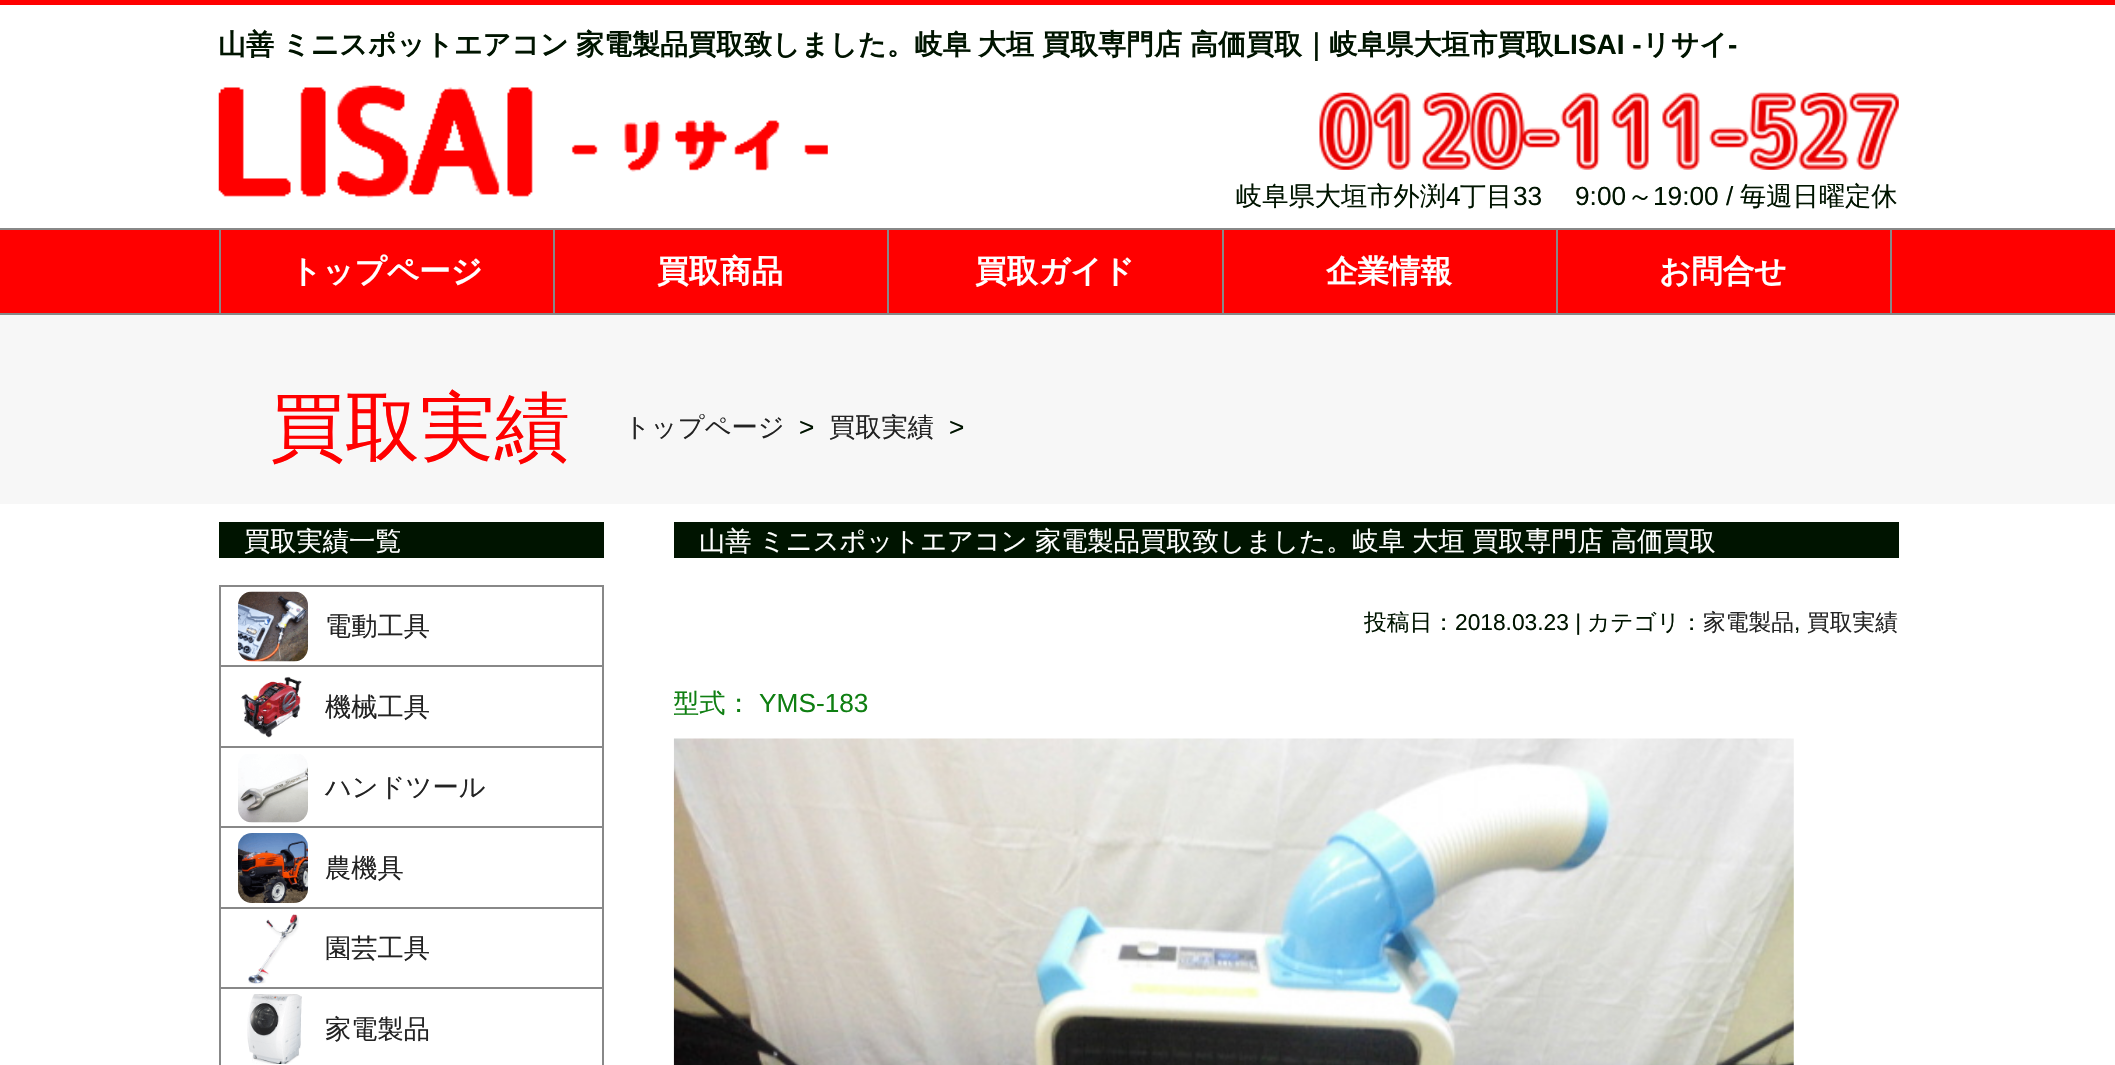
void draw(SkCanvas* canvas) {
    SkPaint paint;
    paint.setAntiAlias(true);
    auto spacedText = [&](const char* s, float x, float y, const SkFont& font, const SkPaint& ink, float letter, float word) {
        std::vector<SkGlyphID> glyphs(font.countText(s, strlen(s), SkTextEncoding::kUTF8));
        std::vector<float> xs(glyphs.size());
        font.textToGlyphs(s, strlen(s), SkTextEncoding::kUTF8, glyphs);
        font.getXPos(glyphs, xs, x);
        float extra = 0;
        for (size_t i = 0; i < glyphs.size(); i++) {
            xs[i] += extra;
            extra += letter + word * (glyphs[i] == font.unicharToGlyph(' '));
        }
        canvas->drawTextBlob(SkTextBlob::MakeFromPosHGlyphs(glyphs, xs, y, font), 0, 0, ink);
    };
    canvas->clear(0xFFFFFFFF);
    paint.setColor(0xFFFF0000);
    canvas->drawRect(SkRect::MakeXYWH(0, 0, 2115, 5), paint);
    SkFont font1(fontMgr->matchFamilyStyle("WenQuanYi Zen Hei", SkFontStyle::Bold()), 28);
    font1.setSubpixel(true);
    paint.setColor(0xFF001400);
    canvas->drawString("山善", 218, 54, font1, paint);
    canvas->drawString("ミニスポットエアコン", 282, 54, font1, paint);
    canvas->drawString("家電製品買取致しました。岐阜", 576, 54, font1, paint);
    canvas->drawString("大垣", 978, 54, font1, paint);
    canvas->drawString("買取専門店", 1042, 54, font1, paint);
    canvas->drawString("高価買取｜岐阜県大垣市買取", 1190, 54, font1, paint);
    SkFont font2(fontMgr->matchFamilyStyle("Liberation Sans", SkFontStyle::Bold()), 28);
    font2.setSubpixel(true);
    canvas->drawString("LISAI -", 1553, 54, font2, paint);
    canvas->drawString("リサイ", 1642, 54, font1, paint);
    canvas->drawString("-", 1728, 54, font2, paint);
    canvas->drawImageRect(SkImages::DeferredFromEncodedData(SkData::MakeFromFileName("img1.png")), SkRect::MakeXYWH(218, 85, 610, 113), SkSamplingOptions());
    canvas->drawImageRect(SkImages::DeferredFromEncodedData(SkData::MakeFromFileName("img2.png")), SkRect::MakeXYWH(1319, 92, 580, 78), SkSamplingOptions());
    SkFont font3(fontMgr->matchFamilyStyle("WenQuanYi Zen Hei", SkFontStyle(500, SkFontStyle::kNormal_Width, SkFontStyle::kUpright_Slant)), 26.25f);
    font3.setSubpixel(true);
    canvas->drawString("岐阜県大垣市外渕", 1236, 205, font3, paint);
    SkFont font4(fontMgr->matchFamilyStyle("Liberation Sans", SkFontStyle::Normal()), 26.25f);
    font4.setSubpixel(true);
    canvas->drawString("4", 1446, 205, font4, paint);
    canvas->drawString("丁目", 1460, 205, font3, paint);
    canvas->drawString("33", 1513, 205, font4, paint);
    canvas->drawString("9:00", 1575, 205, font4, paint);
    canvas->drawString("～", 1627, 205, font3, paint);
    canvas->drawString("19:00 /", 1653, 205, font4, paint);
    canvas->drawString("毎週日曜定休", 1740, 205, font3, paint);
    paint.setColor(0xFFFF0000);
    canvas->drawRect(SkRect::MakeXYWH(0, 230, 2115, 83), paint);
    paint.setColor(0xFF888888);
    canvas->drawRect(SkRect::MakeXYWH(0, 228, 2115, 2), paint);
    canvas->drawRect(SkRect::MakeXYWH(0, 313, 2115, 2), paint);
    canvas->drawRect(SkRect::MakeXYWH(219, 229, 2, 84), paint);
    SkFont font5(fontMgr->matchFamilyStyle("WenQuanYi Zen Hei", SkFontStyle::Bold()), 31.5f);
    font5.setSubpixel(true);
    paint.setColor(0xFFFFFFFF);
    canvas->drawString("トップページ", 290, 282, font5, paint);
    paint.setColor(0xFF888888);
    canvas->drawRect(SkRect::MakeXYWH(553, 229, 2, 84), paint);
    paint.setColor(0xFFFFFFFF);
    canvas->drawString("買取商品", 657, 282, font5, paint);
    paint.setColor(0xFF888888);
    canvas->drawRect(SkRect::MakeXYWH(887, 229, 2, 84), paint);
    paint.setColor(0xFFFFFFFF);
    canvas->drawString("買取ガイド", 975, 282, font5, paint);
    paint.setColor(0xFF888888);
    canvas->drawRect(SkRect::MakeXYWH(1222, 229, 2, 84), paint);
    paint.setColor(0xFFFFFFFF);
    canvas->drawString("企業情報", 1326, 282, font5, paint);
    paint.setColor(0xFF888888);
    canvas->drawRect(SkRect::MakeXYWH(1890, 229, 2, 84), paint);
    canvas->drawRect(SkRect::MakeXYWH(1556, 229, 2, 84), paint);
    paint.setColor(0xFFFFFFFF);
    canvas->drawString("お問合せ", 1659, 282, font5, paint);
    paint.setColor(0xFFF7F7F7);
    canvas->drawRect(SkRect::MakeXYWH(0, 315, 2115, 189), paint);
    SkFont font6(fontMgr->matchFamilyStyle("WenQuanYi Zen Hei", SkFontStyle(500, SkFontStyle::kNormal_Width, SkFontStyle::kUpright_Slant)), 75);
    font6.setSubpixel(true);
    paint.setColor(0xFFFF0000);
    canvas->drawString("買取実績", 270, 453, font6, paint);
    paint.setColor(0xFF232323);
    canvas->drawString("トップページ", 624, 436, font3, paint);
    paint.setColor(0xFF001400);
    canvas->drawString(">", 799, 436, font4, paint);
    paint.setColor(0xFF232323);
    canvas->drawString("買取実績", 829, 436, font3, paint);
    paint.setColor(0xFF001400);
    canvas->drawString(">", 949, 436, font4, paint);
    canvas->drawRect(SkRect::MakeXYWH(219, 522, 385, 36), paint);
    paint.setColor(0xFFFFFFFF);
    canvas->drawString("買取実績一覧", 244, 550, font3, paint);
    paint.setColor(0xFF888888);
    canvas->drawRect(SkRect::MakeXYWH(219, 585, 385, 2), paint);
    canvas->drawRect(SkRect::MakeXYWH(602, 585, 2, 80), paint);
    canvas->drawRect(SkRect::MakeXYWH(219, 585, 2, 80), paint);
    canvas->drawImageRect(SkImages::DeferredFromEncodedData(SkData::MakeFromFileName("img3.png")), SkRect::MakeXYWH(238, 591, 70, 71), SkSamplingOptions());
    paint.setColor(0xFF232323);
    canvas->drawString("電動工具", 325, 635, font3, paint);
    paint.setColor(0xFF888888);
    canvas->drawRect(SkRect::MakeXYWH(219, 665, 385, 2), paint);
    canvas->drawRect(SkRect::MakeXYWH(602, 665, 2, 81), paint);
    canvas->drawRect(SkRect::MakeXYWH(219, 665, 2, 81), paint);
    canvas->drawImageRect(SkImages::DeferredFromEncodedData(SkData::MakeFromFileName("img4.png")), SkRect::MakeXYWH(241, 676, 61, 62), SkSamplingOptions());
    paint.setColor(0xFF232323);
    canvas->drawString("機械工具", 325, 716, font3, paint);
    paint.setColor(0xFF888888);
    canvas->drawRect(SkRect::MakeXYWH(219, 746, 385, 2), paint);
    canvas->drawRect(SkRect::MakeXYWH(602, 746, 2, 80), paint);
    canvas->drawRect(SkRect::MakeXYWH(219, 746, 2, 80), paint);
    canvas->drawImageRect(SkImages::DeferredFromEncodedData(SkData::MakeFromFileName("img5.png")), SkRect::MakeXYWH(238, 754, 70, 69), SkSamplingOptions());
    paint.setColor(0xFF232323);
    canvas->drawString("ハンドツール", 325, 796, font3, paint);
    paint.setColor(0xFF888888);
    canvas->drawRect(SkRect::MakeXYWH(219, 826, 385, 2), paint);
    canvas->drawRect(SkRect::MakeXYWH(602, 826, 2, 81), paint);
    canvas->drawRect(SkRect::MakeXYWH(219, 826, 2, 81), paint);
    canvas->drawImageRect(SkImages::DeferredFromEncodedData(SkData::MakeFromFileName("img6.png")), SkRect::MakeXYWH(238, 833, 70, 70), SkSamplingOptions());
    paint.setColor(0xFF232323);
    canvas->drawString("農機具", 325, 877, font3, paint);
    paint.setColor(0xFF888888);
    canvas->drawRect(SkRect::MakeXYWH(219, 907, 385, 2), paint);
    canvas->drawRect(SkRect::MakeXYWH(602, 907, 2, 80), paint);
    canvas->drawRect(SkRect::MakeXYWH(219, 907, 2, 80), paint);
    canvas->drawImageRect(SkImages::DeferredFromEncodedData(SkData::MakeFromFileName("img7.png")), SkRect::MakeXYWH(248, 914, 51, 70), SkSamplingOptions());
    paint.setColor(0xFF232323);
    canvas->drawString("園芸工具", 325, 957, font3, paint);
    paint.setColor(0xFF888888);
    canvas->drawRect(SkRect::MakeXYWH(219, 987, 385, 2), paint);
    canvas->drawRect(SkRect::MakeXYWH(602, 987, 2, 78), paint);
    canvas->drawRect(SkRect::MakeXYWH(219, 987, 2, 78), paint);
    canvas->drawImageRect(SkImages::DeferredFromEncodedData(SkData::MakeFromFileName("img8.png")), SkRect::MakeXYWH(247, 994, 55, 70), SkSamplingOptions());
    paint.setColor(0xFF232323);
    canvas->drawString("家電製品", 325, 1038, font3, paint);
    paint.setColor(0xFF001400);
    canvas->drawRect(SkRect::MakeXYWH(674, 522, 1225, 36), paint);
    paint.setColor(0xFFFFFFFF);
    canvas->drawString("山善", 699, 550, font3, paint);
    spacedText("ミニスポットエアコン 家電製品買取致しました。岐阜 大垣 買取専門店 高価買取", 759, 550, font3, paint, 0, -0.5f);
    SkFont font7(fontMgr->matchFamilyStyle("WenQuanYi Zen Hei", SkFontStyle(500, SkFontStyle::kNormal_Width, SkFontStyle::kUpright_Slant)), 22.75f);
    font7.setSubpixel(true);
    paint.setColor(0xFF001400);
    canvas->drawString("投稿日：", 1364, 630, font7, paint);
    SkFont font8(fontMgr->matchFamilyStyle("Liberation Sans", SkFontStyle::Normal()), 22.75f);
    font8.setSubpixel(true);
    canvas->drawString("2018.03.23 |", 1455, 630, font8, paint);
    canvas->drawString("カテゴリ：", 1587, 630, font7, paint);
    paint.setColor(0xFF232323);
    canvas->drawString("家電製品", 1703, 630, font7, paint);
    paint.setColor(0xFF001400);
    canvas->drawString(",", 1794, 630, font8, paint);
    paint.setColor(0xFF232323);
    canvas->drawString("買取実績", 1807, 630, font7, paint);
    canvas->save();
    canvas->clipRect(SkRect::MakeXYWH(674, 522, 1225, 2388));
    paint.setColor(0xFF0F7F12);
    canvas->drawString("型式：", 673, 712, font3, paint);
    canvas->restore();
    canvas->drawString("YMS-183", 759, 712, font4, paint);
    canvas->drawImageRect(SkImages::DeferredFromEncodedData(SkData::MakeFromFileName("img9.png")), SkRect::MakeXYWH(673, 738, 1121, 327), SkSamplingOptions());
}
